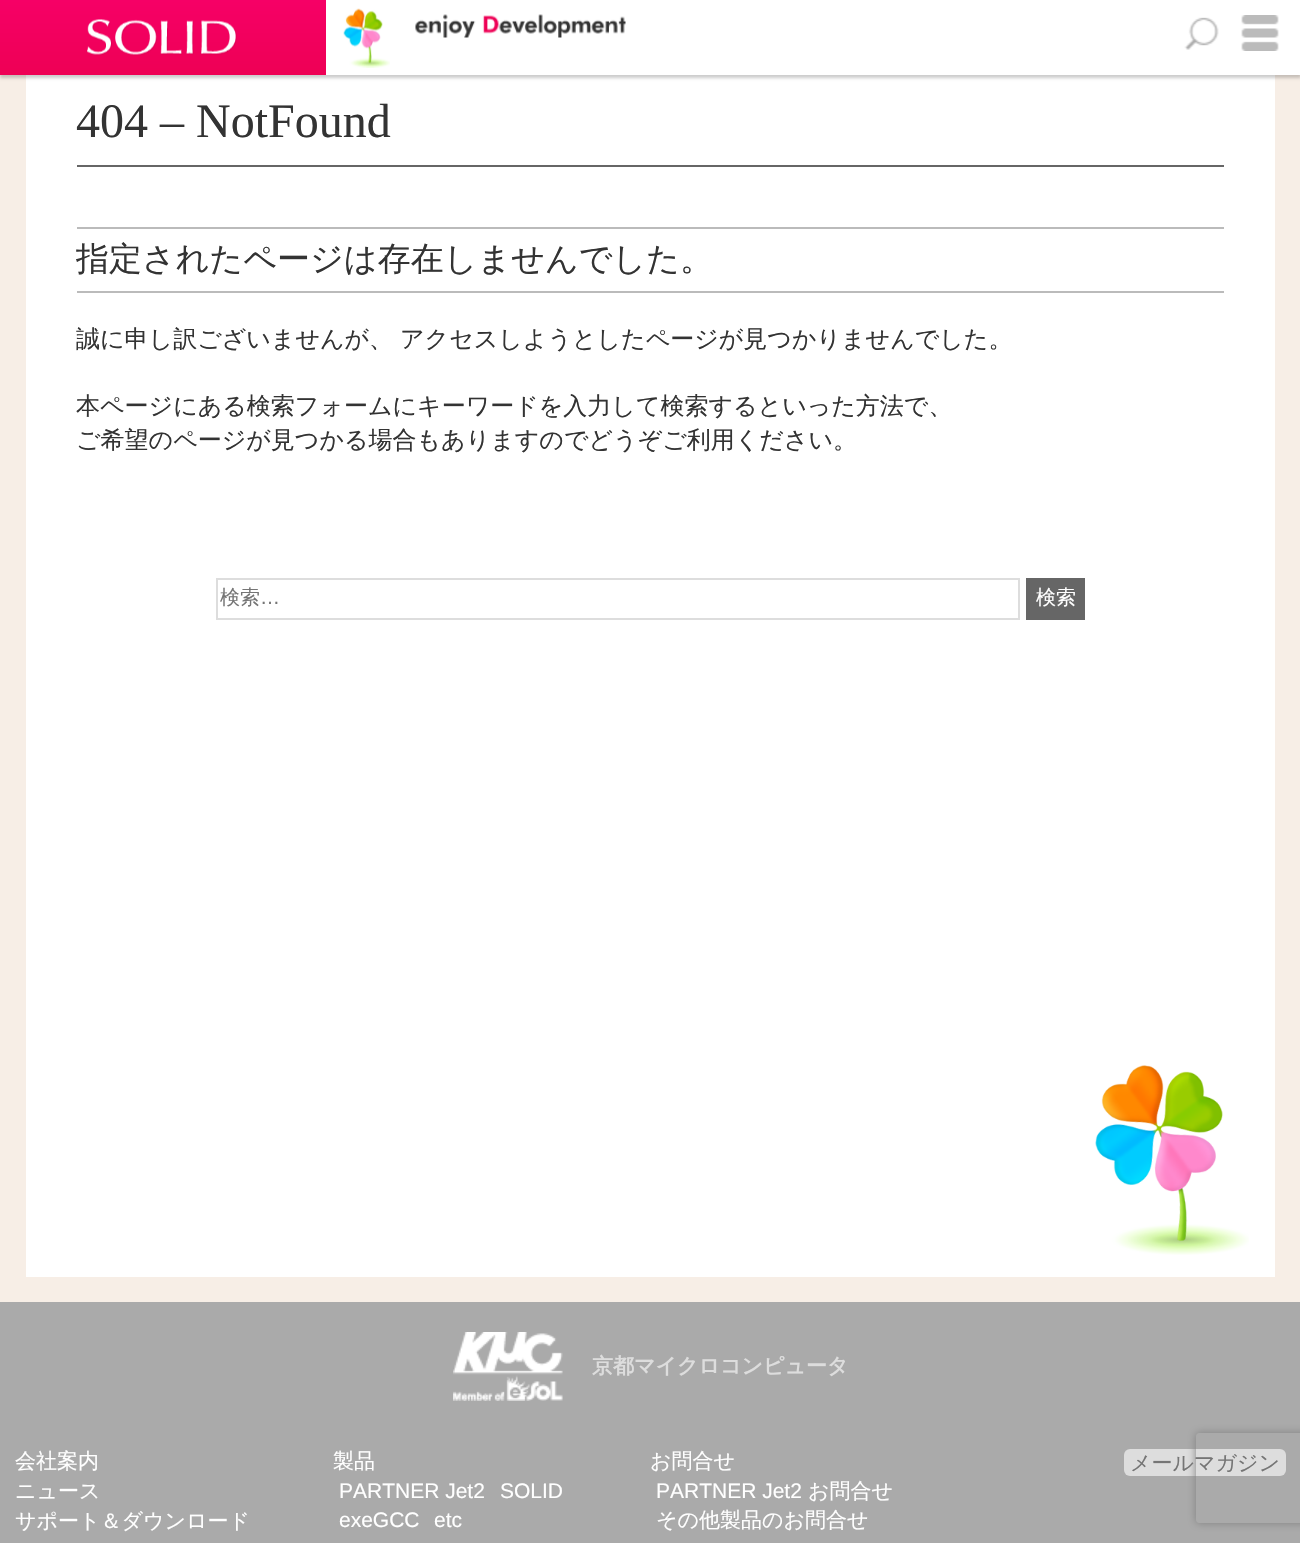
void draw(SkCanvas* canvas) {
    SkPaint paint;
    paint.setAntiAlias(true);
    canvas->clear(0xFFF7EEE6);
    paint.setColor(0xFFFFFFFF);
    canvas->drawRect(SkRect::MakeXYWH(26, 75, 1249, 1202), paint);
    paint.setColor(0x33000000);
    paint.setMaskFilter(SkMaskFilter::MakeBlur(kNormal_SkBlurStyle, 1.5f));
    canvas->drawRect(SkRect::MakeXYWH(0, 3, 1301, 75), paint);
    paint.setMaskFilter(nullptr);
    paint.setColor(0xFFFFFFFF);
    canvas->drawRect(SkRect::MakeXYWH(326, 0, 974, 75), paint);
    {
        const SkColor colors[] = {0xFFF60066, 0xFFEE0055};
        const float stops[] = {0, 1};
        const SkPoint ends[] = {{163, 0}, {163, 75}};
        paint.setShader(SkGradientShader::MakeLinear(ends, colors, stops, 2, SkTileMode::kClamp));
        paint.setAlpha(255);
    }
    canvas->drawRect(SkRect::MakeXYWH(0, 0, 326, 75), paint);
    canvas->drawImageRect(SkImages::DeferredFromEncodedData(SkData::MakeFromFileName("img1.png")), SkRect::MakeXYWH(87, 19, 150, 37), SkSamplingOptions());
    canvas->drawImageRect(SkImages::DeferredFromEncodedData(SkData::MakeFromFileName("img2.png")), SkRect::MakeXYWH(343, 8, 47, 60), SkSamplingOptions());
    canvas->drawImageRect(SkImages::DeferredFromEncodedData(SkData::MakeFromFileName("img3.png")), SkRect::MakeXYWH(415, 14, 211, 24), SkSamplingOptions());
    canvas->drawImageRect(SkImages::DeferredFromEncodedData(SkData::MakeFromFileName("img4.png")), SkRect::MakeXYWH(1184, 17, 35, 33), SkSamplingOptions());
    canvas->drawImageRect(SkImages::DeferredFromEncodedData(SkData::MakeFromFileName("img5.png")), SkRect::MakeXYWH(1241, 15, 38, 36), SkSamplingOptions());
    canvas->drawImageRect(SkImages::DeferredFromEncodedData(SkData::MakeFromFileName("img6.png")), SkRect::MakeXYWH(1095, 1065, 154, 190), SkSamplingOptions());
    paint.setShader(nullptr);
    paint.setColor(0xFF666666);
    canvas->drawRect(SkRect::MakeXYWH(77, 165, 1147, 2), paint);
    SkFont font1(fontMgr->matchFamilyStyle("Liberation Serif", SkFontStyle::Normal()), 48);
    font1.setSubpixel(true);
    paint.setColor(0xFF333333);
    canvas->drawString("404 – NotFound", 76, 137, font1, paint);
    paint.setColor(0xFFBBBBBB);
    canvas->drawRect(SkRect::MakeXYWH(77, 227, 1147, 2), paint);
    canvas->drawRect(SkRect::MakeXYWH(77, 291, 1147, 2), paint);
    SkFont font2(fontMgr->matchFamilyStyle("WenQuanYi Zen Hei", SkFontStyle(500, SkFontStyle::kNormal_Width, SkFontStyle::kUpright_Slant)), 33);
    font2.setSubpixel(true);
    paint.setColor(0xFF333333);
    canvas->drawString("指定されたページは存在しませんでした。", 76, 270, font2, paint);
    SkFont font3(fontMgr->matchFamilyStyle("WenQuanYi Zen Hei", SkFontStyle(500, SkFontStyle::kNormal_Width, SkFontStyle::kUpright_Slant)), 24);
    font3.setSubpixel(true);
    canvas->drawString("誠に申し訳ございませんが、", 76, 347, font3, paint);
    canvas->drawString("アクセスしようとしたページが見つかりませんでした。", 400, 347, font3, paint);
    canvas->drawString("本ページにある検索フォームにキーワードを入力して検索するといった方法で、", 76, 414, font3, paint);
    canvas->drawString("ご希望のページが見つかる場合もありますのでどうぞご利用ください。", 76, 448, font3, paint);
    paint.setStyle(SkPaint::kStroke_Style);
    paint.setStrokeWidth(2);
    paint.setColor(0xFFDDDDDD);
    canvas->drawRect(SkRect::MakeXYWH(217, 579, 802, 40), paint);
    SkFont font4(fontMgr->matchFamilyStyle("WenQuanYi Zen Hei", SkFontStyle(500, SkFontStyle::kNormal_Width, SkFontStyle::kUpright_Slant)), 20);
    font4.setSubpixel(true);
    paint.setStyle(SkPaint::kFill_Style);
    paint.setColor(0xFF757575);
    canvas->drawString("検索", 220, 604, font4, paint);
    SkFont font5(fontMgr->matchFamilyStyle("Liberation Sans", SkFontStyle::Normal()), 20);
    font5.setSubpixel(true);
    canvas->drawString("…", 260, 604, font5, paint);
    paint.setColor(0xFF666666);
    canvas->drawRect(SkRect::MakeXYWH(1026, 578, 59, 42), paint);
    paint.setColor(0xFFFFFFFF);
    canvas->drawString("検索", 1036, 604, font4, paint);
    paint.setColor(0xFFAAAAAA);
    canvas->drawRect(SkRect::MakeXYWH(0, 1302, 1300, 241), paint);
    canvas->drawImageRect(SkImages::DeferredFromEncodedData(SkData::MakeFromFileName("img7.png")), SkRect::MakeXYWH(453, 1332, 110, 69), SkSamplingOptions());
    SkFont font6(fontMgr->matchFamilyStyle("WenQuanYi Zen Hei", SkFontStyle::Bold()), 21);
    font6.setSubpixel(true);
    paint.setColor(0xFFDDDDDD);
    canvas->drawString("京都マイクロコンピュータ", 592, 1373, font6, paint);
    SkFont font7(fontMgr->matchFamilyStyle("WenQuanYi Zen Hei", SkFontStyle(500, SkFontStyle::kNormal_Width, SkFontStyle::kUpright_Slant)), 21);
    font7.setSubpixel(true);
    paint.setColor(0xFFFFFFFF);
    canvas->drawString("会社案内", 15, 1468, font7, paint);
    canvas->drawString("ニュース", 15, 1498, font7, paint);
    canvas->drawString("サポート＆ダウンロード", 15, 1528, font7, paint);
    canvas->drawString("製品", 333, 1468, font7, paint);
    SkFont font8(fontMgr->matchFamilyStyle("Liberation Sans", SkFontStyle::Normal()), 21);
    font8.setSubpixel(true);
    canvas->drawString("PARTNER Jet2", 339, 1498, font8, paint);
    canvas->drawString("SOLID", 500, 1498, font8, paint);
    canvas->drawString("exeGCC", 339, 1527, font8, paint);
    canvas->drawString("etc", 434, 1527, font8, paint);
    canvas->drawString("お問合せ", 650, 1468, font7, paint);
    canvas->drawString("PARTNER Jet2", 656, 1498, font8, paint);
    canvas->drawString("お問合せ", 808, 1498, font7, paint);
    canvas->drawString("その他製品のお問合せ", 656, 1527, font7, paint);
    paint.setColor(0xFFDDDDDD);
    canvas->drawRoundRect(SkRect::MakeXYWH(1124, 1449, 162, 27), 6, 6, paint);
    paint.setColor(0xFF757575);
    canvas->drawString("メールマガジン", 1130, 1470, font7, paint);
    canvas->save();
    canvas->clipPath(SkPathBuilder(SkPathFillType::kEvenOdd).moveTo(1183, 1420).lineTo(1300, 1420).lineTo(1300, 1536).lineTo(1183, 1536).close().moveTo(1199, 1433).lineTo(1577, 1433).cubicTo(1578.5f, 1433, 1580, 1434.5f, 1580, 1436).lineTo(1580, 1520).cubicTo(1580, 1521.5f, 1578.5f, 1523, 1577, 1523).lineTo(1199, 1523).cubicTo(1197.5f, 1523, 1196, 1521.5f, 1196, 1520).lineTo(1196, 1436).cubicTo(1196, 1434.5f, 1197.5f, 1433, 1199, 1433).close().detach(), true);
    paint.setColor(0xFF808080);
    paint.setMaskFilter(SkMaskFilter::MakeBlur(kNormal_SkBlurStyle, 4));
    canvas->drawRoundRect(SkRect::MakeXYWH(1196, 1433, 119, 90), 3, 3, paint);
    paint.setMaskFilter(nullptr);
    canvas->restore();
}
